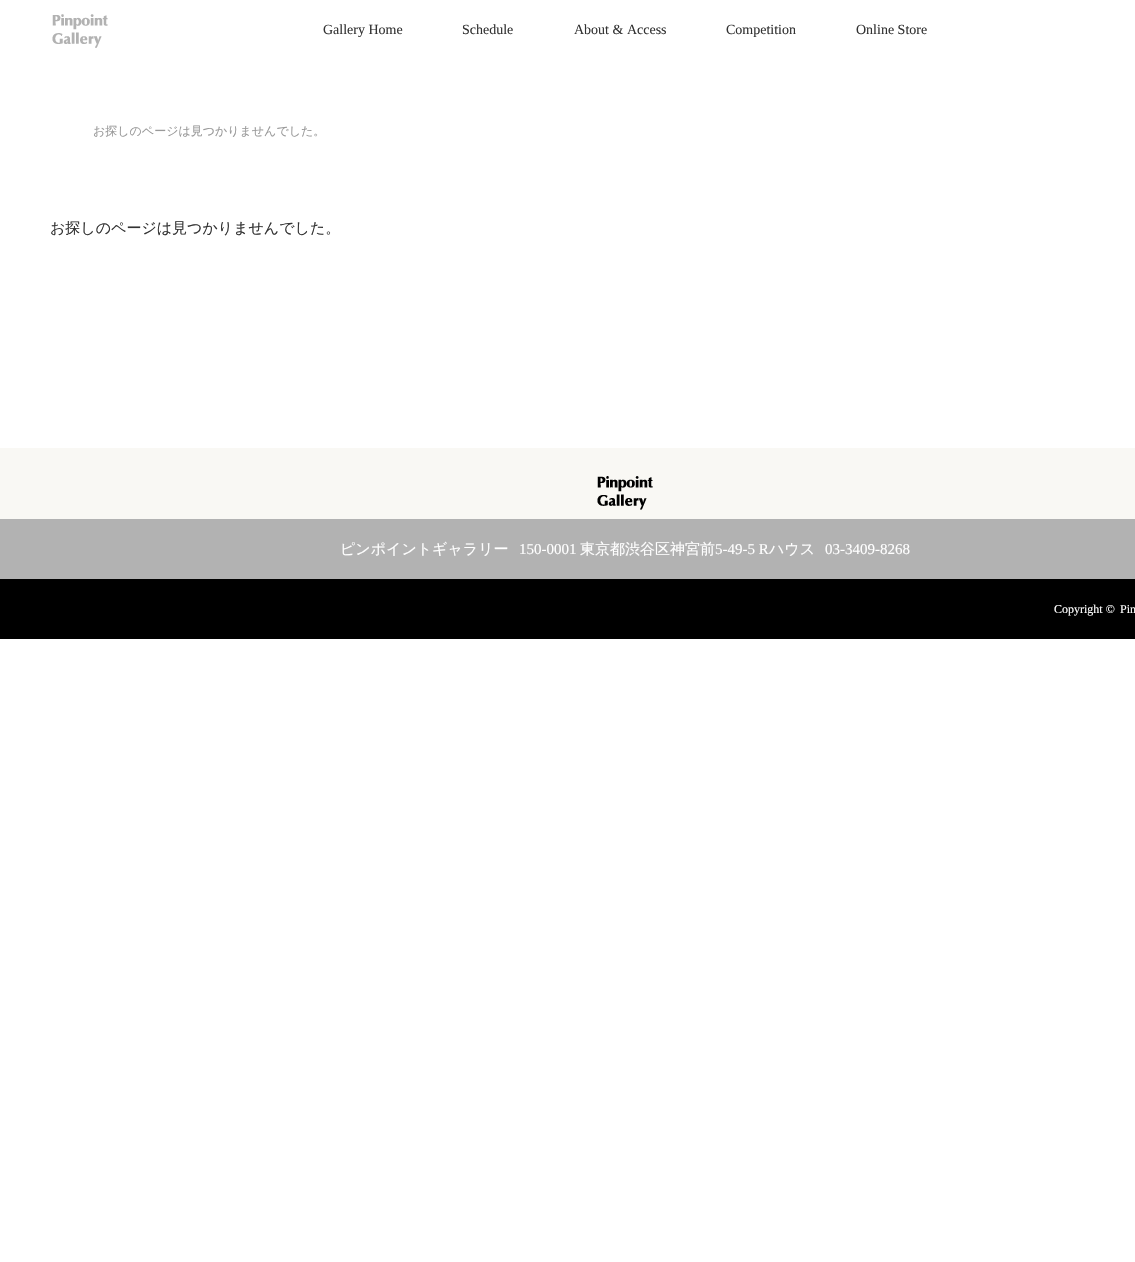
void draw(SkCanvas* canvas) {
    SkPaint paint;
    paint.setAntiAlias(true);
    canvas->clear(0xFFFFFFFF);
    canvas->drawImageRect(SkImages::DeferredFromEncodedData(SkData::MakeFromFileName("img1.png")), SkRect::MakeXYWH(52, 14, 56, 34), SkSamplingOptions());
    SkFont font1(fontMgr->matchFamilyStyle("Liberation Serif", SkFontStyle::Normal()), 14);
    font1.setSubpixel(true);
    paint.setColor(0xFF333333);
    canvas->drawString("Gallery Home", 323, 34, font1, paint);
    canvas->drawString("Schedule", 462, 34, font1, paint);
    canvas->drawString("About & Access", 574, 34, font1, paint);
    canvas->drawString("Competition", 726, 34, font1, paint);
    canvas->drawString("Online Store", 856, 34, font1, paint);
    SkFont font2(fontMgr->matchFamilyStyle("WenQuanYi Zen Hei", SkFontStyle(500, SkFontStyle::kNormal_Width, SkFontStyle::kUpright_Slant)), 12);
    font2.setSubpixel(true);
    paint.setColor(0xFF999999);
    canvas->drawString("お探しのページは見つかりませんでした。", 93, 135, font2, paint);
    SkFont font3(fontMgr->matchFamilyStyle("WenQuanYi Zen Hei", SkFontStyle(500, SkFontStyle::kNormal_Width, SkFontStyle::kUpright_Slant)), 15);
    font3.setSubpixel(true);
    paint.setColor(0xFF333333);
    canvas->drawString("お探しのページは見つかりませんでした。", 50, 233, font3, paint);
    paint.setColor(0xFFF9F8F4);
    canvas->drawRect(SkRect::MakeXYWH(0, 448, 1135, 71), paint);
    canvas->drawImageRect(SkImages::DeferredFromEncodedData(SkData::MakeFromFileName("img2.png")), SkRect::MakeXYWH(597, 476, 56, 34), SkSamplingOptions());
    paint.setColor(0xFFB2B2B2);
    canvas->drawRect(SkRect::MakeXYWH(0, 519, 1135, 60), paint);
    paint.setColor(0xFFFFFFFF);
    canvas->drawString("ピンポイントギャラリー", 340, 554, font3, paint);
    SkFont font4(fontMgr->matchFamilyStyle("Liberation Serif", SkFontStyle::Normal()), 15);
    font4.setSubpixel(true);
    canvas->drawString("150-0001", 519, 554, font4, paint);
    canvas->drawString("東京都渋谷区神宮前", 580, 554, font3, paint);
    canvas->drawString("5-49-5 R", 715, 554, font4, paint);
    canvas->drawString("ハウス", 769, 554, font3, paint);
    canvas->drawString("03-3409-8268", 825, 554, font4, paint);
    paint.setColor(0xFF000000);
    canvas->drawRect(SkRect::MakeXYWH(0, 579, 1135, 60), paint);
    SkFont font5(fontMgr->matchFamilyStyle("Liberation Serif", SkFontStyle::Normal()), 12);
    font5.setSubpixel(true);
    paint.setColor(0xFFFFFFFF);
    canvas->drawString("Copyright ©", 1054, 613, font5, paint);
    canvas->drawString("Pin", 1120, 613, font5, paint);
}
